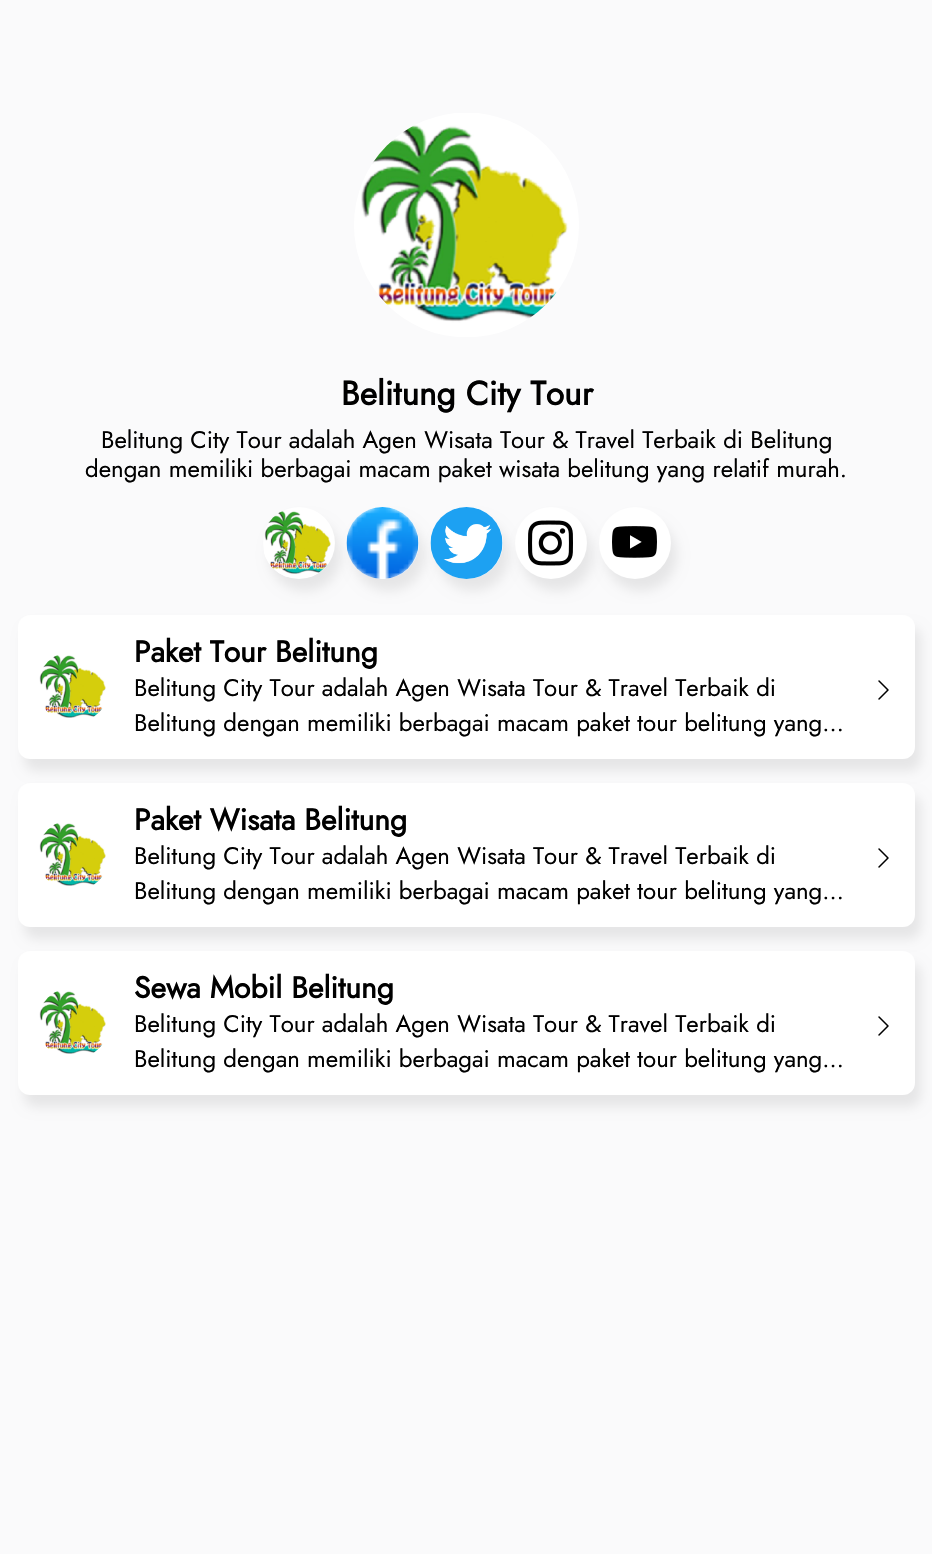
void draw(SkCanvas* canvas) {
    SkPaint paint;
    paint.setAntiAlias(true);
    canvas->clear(0xFFFAFAFB);
    canvas->drawImageRect(SkImages::DeferredFromEncodedData(SkData::MakeFromFileName("img1.png")), SkRect::MakeXYWH(354, 113, 225, 224), SkSamplingOptions());
    SkFont font1(fontMgr->matchFamilyStyle("Jost", SkFontStyle::Bold()), 33.5f);
    font1.setSubpixel(true);
    paint.setColor(0xFF000000);
    canvas->drawString("Belitung City Tour", 341, 405, font1, paint);
    SkFont font2(fontMgr->matchFamilyStyle("Jost", SkFontStyle::Normal()), 24);
    font2.setSubpixel(true);
    canvas->drawString("Belitung City Tour adalah Agen Wisata Tour & Travel Terbaik di Belitung", 101, 448, font2, paint);
    canvas->drawString("dengan memiliki berbagai macam paket wisata belitung yang relatif murah.", 85, 477, font2, paint);
    paint.setColor(0x14000000);
    paint.setMaskFilter(SkMaskFilter::MakeBlur(kNormal_SkBlurStyle, 6));
    canvas->drawRoundRect(SkRect::MakeXYWH(269, 519, 72, 72), 36, 36, paint);
    paint.setMaskFilter(nullptr);
    paint.setColor(0xFFFFFFFF);
    canvas->drawCircle(299, 543, 36, paint);
    canvas->drawImageRect(SkImages::DeferredFromEncodedData(SkData::MakeFromFileName("img2.png")), SkRect::MakeXYWH(264, 511, 67, 66), SkSamplingOptions());
    paint.setColor(0x14000000);
    paint.setMaskFilter(SkMaskFilter::MakeBlur(kNormal_SkBlurStyle, 6));
    canvas->drawRoundRect(SkRect::MakeXYWH(353, 519, 72, 72), 36, 36, paint);
    paint.setMaskFilter(nullptr);
    paint.setColor(0xFFFFFFFF);
    canvas->drawCircle(383, 543, 36, paint);
    canvas->drawImageRect(SkImages::DeferredFromEncodedData(SkData::MakeFromFileName("img3.png")), SkRect::MakeXYWH(346, 507, 73, 72), SkSamplingOptions());
    paint.setColor(0x14000000);
    paint.setMaskFilter(SkMaskFilter::MakeBlur(kNormal_SkBlurStyle, 6));
    canvas->drawRoundRect(SkRect::MakeXYWH(437, 519, 72, 72), 36, 36, paint);
    paint.setMaskFilter(nullptr);
    paint.setColor(0xFFFFFFFF);
    canvas->drawCircle(467, 543, 36, paint);
    canvas->drawImageRect(SkImages::DeferredFromEncodedData(SkData::MakeFromFileName("img4.png")), SkRect::MakeXYWH(430, 507, 73, 72), SkSamplingOptions());
    paint.setColor(0x14000000);
    paint.setMaskFilter(SkMaskFilter::MakeBlur(kNormal_SkBlurStyle, 6));
    canvas->drawRoundRect(SkRect::MakeXYWH(521, 519, 72, 72), 36, 36, paint);
    paint.setMaskFilter(nullptr);
    paint.setColor(0xFFFFFFFF);
    canvas->drawCircle(551, 543, 36, paint);
    canvas->drawImageRect(SkImages::DeferredFromEncodedData(SkData::MakeFromFileName("img5.png")), SkRect::MakeXYWH(528, 520, 45, 46), SkSamplingOptions());
    paint.setColor(0x14000000);
    paint.setMaskFilter(SkMaskFilter::MakeBlur(kNormal_SkBlurStyle, 6));
    canvas->drawRoundRect(SkRect::MakeXYWH(605, 519, 72, 72), 36, 36, paint);
    paint.setMaskFilter(nullptr);
    paint.setColor(0xFFFFFFFF);
    canvas->drawCircle(635, 543, 36, paint);
    canvas->drawImageRect(SkImages::DeferredFromEncodedData(SkData::MakeFromFileName("img6.png")), SkRect::MakeXYWH(612, 526, 45, 32), SkSamplingOptions());
    paint.setColor(0x14000000);
    paint.setMaskFilter(SkMaskFilter::MakeBlur(kNormal_SkBlurStyle, 6));
    canvas->drawRoundRect(SkRect::MakeXYWH(24, 627, 897, 144), 12, 12, paint);
    paint.setMaskFilter(nullptr);
    paint.setColor(0xFFFFFFFF);
    canvas->drawRoundRect(SkRect::MakeXYWH(18, 615, 897, 144), 12, 12, paint);
    canvas->drawImageRect(SkImages::DeferredFromEncodedData(SkData::MakeFromFileName("img7.png")), SkRect::MakeXYWH(39, 655, 67, 63), SkSamplingOptions());
    SkFont font3(fontMgr->matchFamilyStyle("Jost", SkFontStyle::Bold()), 30);
    font3.setSubpixel(true);
    paint.setColor(0xFF000000);
    canvas->drawString("Paket Tour Belitung", 134, 662, font3, paint);
    canvas->drawString("Belitung City Tour adalah Agen Wisata Tour & Travel Terbaik di", 134, 696, font2, paint);
    canvas->drawString("Belitung dengan memiliki berbagai macam paket tour belitung yang…", 134, 731, font2, paint);
    canvas->drawImageRect(SkImages::DeferredFromEncodedData(SkData::MakeFromFileName("img8.png")), SkRect::MakeXYWH(878, 680, 11, 20), SkSamplingOptions());
    paint.setColor(0x14000000);
    paint.setMaskFilter(SkMaskFilter::MakeBlur(kNormal_SkBlurStyle, 6));
    canvas->drawRoundRect(SkRect::MakeXYWH(24, 795, 897, 144), 12, 12, paint);
    paint.setMaskFilter(nullptr);
    paint.setColor(0xFFFFFFFF);
    canvas->drawRoundRect(SkRect::MakeXYWH(18, 783, 897, 144), 12, 12, paint);
    canvas->drawImageRect(SkImages::DeferredFromEncodedData(SkData::MakeFromFileName("img7.png")), SkRect::MakeXYWH(39, 823, 67, 63), SkSamplingOptions());
    paint.setColor(0xFF000000);
    canvas->drawString("Paket Wisata Belitung", 134, 830, font3, paint);
    canvas->drawString("Belitung City Tour adalah Agen Wisata Tour & Travel Terbaik di", 134, 864, font2, paint);
    canvas->drawString("Belitung dengan memiliki berbagai macam paket tour belitung yang…", 134, 899, font2, paint);
    canvas->drawImageRect(SkImages::DeferredFromEncodedData(SkData::MakeFromFileName("img8.png")), SkRect::MakeXYWH(878, 848, 11, 20), SkSamplingOptions());
    paint.setColor(0x14000000);
    paint.setMaskFilter(SkMaskFilter::MakeBlur(kNormal_SkBlurStyle, 6));
    canvas->drawRoundRect(SkRect::MakeXYWH(24, 963, 897, 144), 12, 12, paint);
    paint.setMaskFilter(nullptr);
    paint.setColor(0xFFFFFFFF);
    canvas->drawRoundRect(SkRect::MakeXYWH(18, 951, 897, 144), 12, 12, paint);
    canvas->drawImageRect(SkImages::DeferredFromEncodedData(SkData::MakeFromFileName("img9.png")), SkRect::MakeXYWH(39, 991, 67, 63), SkSamplingOptions());
    paint.setColor(0xFF000000);
    canvas->drawString("Sewa Mobil Belitung", 134, 998, font3, paint);
    canvas->drawString("Belitung City Tour adalah Agen Wisata Tour & Travel Terbaik di", 134, 1032, font2, paint);
    canvas->drawString("Belitung dengan memiliki berbagai macam paket tour belitung yang…", 134, 1067, font2, paint);
    canvas->drawImageRect(SkImages::DeferredFromEncodedData(SkData::MakeFromFileName("img8.png")), SkRect::MakeXYWH(878, 1016, 11, 20), SkSamplingOptions());
}
